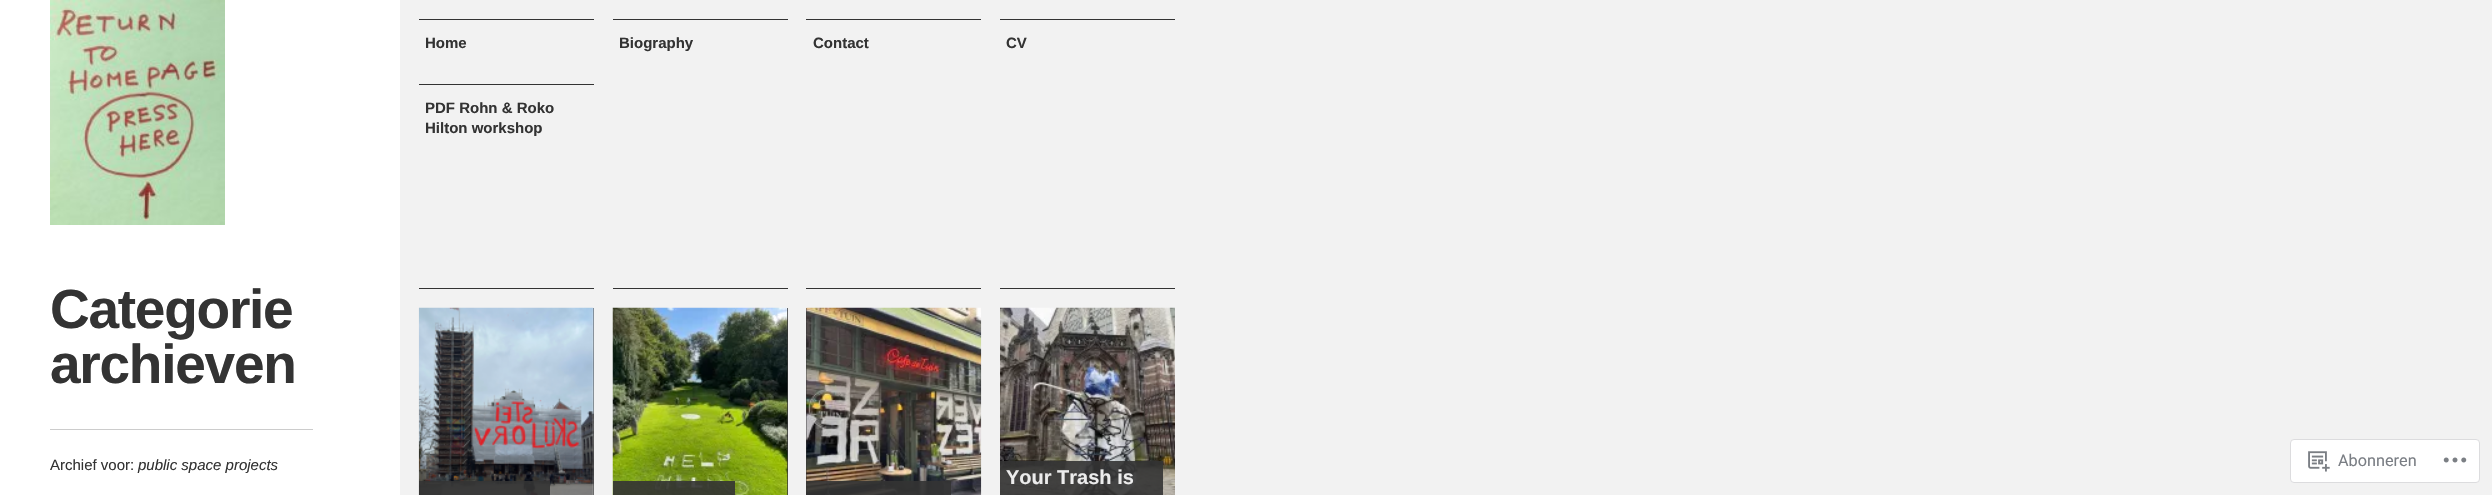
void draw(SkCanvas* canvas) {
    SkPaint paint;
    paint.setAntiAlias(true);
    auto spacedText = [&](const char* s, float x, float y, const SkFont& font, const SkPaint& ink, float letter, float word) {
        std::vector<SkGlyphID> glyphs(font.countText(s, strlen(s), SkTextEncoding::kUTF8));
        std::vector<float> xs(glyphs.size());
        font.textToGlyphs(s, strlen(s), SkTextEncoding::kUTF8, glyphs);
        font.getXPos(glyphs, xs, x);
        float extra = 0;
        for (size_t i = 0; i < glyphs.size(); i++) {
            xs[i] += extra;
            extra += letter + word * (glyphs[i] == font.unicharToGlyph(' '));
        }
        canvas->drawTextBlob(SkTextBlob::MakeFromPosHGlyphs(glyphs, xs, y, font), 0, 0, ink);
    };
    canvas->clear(0xFFF2F2F2);
    paint.setColor(0xFFFFFFFF);
    canvas->drawRect(SkRect::MakeXYWH(0, 0, 400, 495), paint);
    canvas->drawImageRect(SkImages::DeferredFromEncodedData(SkData::MakeFromFileName("img1.png")), SkRect::MakeXYWH(50, 0, 175, 225), SkSamplingOptions());
    paint.setColor(0xFFCCCCCC);
    canvas->drawRect(SkRect::MakeXYWH(50, 429, 263, 1), paint);
    SkFont font1(fontMgr->matchFamilyStyle("Liberation Sans", SkFontStyle::Bold()), 55);
    font1.setSubpixel(true);
    paint.setColor(0xFF333333);
    spacedText("Categorie", 50, 328, font1, paint, -1.25f, 0);
    spacedText("archieven", 50, 383, font1, paint, -1.25f, 0);
    SkFont font2(fontMgr->matchFamilyStyle("Liberation Sans", SkFontStyle::Normal()), 15);
    font2.setSubpixel(true);
    canvas->drawString("Archief voor:", 50, 470, font2, paint);
    SkFont font3(fontMgr->matchFamilyStyle("Liberation Sans", SkFontStyle::Italic()), 15);
    font3.setSubpixel(true);
    canvas->drawString("public space projects", 138, 470, font3, paint);
    canvas->drawRect(SkRect::MakeXYWH(419, 19, 175, 1), paint);
    SkFont font4(fontMgr->matchFamilyStyle("Liberation Sans", SkFontStyle::Bold()), 15);
    font4.setSubpixel(true);
    canvas->drawString("Home", 425, 48, font4, paint);
    canvas->drawRect(SkRect::MakeXYWH(613, 19, 175, 1), paint);
    canvas->drawString("Biography", 619, 48, font4, paint);
    canvas->drawRect(SkRect::MakeXYWH(806, 19, 175, 1), paint);
    canvas->drawString("Contact", 813, 48, font4, paint);
    canvas->drawRect(SkRect::MakeXYWH(1000, 19, 175, 1), paint);
    canvas->drawString("CV", 1006, 48, font4, paint);
    canvas->drawRect(SkRect::MakeXYWH(419, 84, 175, 1), paint);
    canvas->drawString("PDF Rohn & Roko", 425, 113, font4, paint);
    canvas->drawString("Hilton workshop", 425, 133, font4, paint);
    canvas->drawRect(SkRect::MakeXYWH(419, 288, 175, 1), paint);
    canvas->drawRect(SkRect::MakeXYWH(593, 308, 1, 187), paint);
    canvas->drawImageRect(SkImages::DeferredFromEncodedData(SkData::MakeFromFileName("img2.png")), SkRect::MakeXYWH(418, 307, 176, 188), SkSamplingOptions());
    paint.setColor(0xE6333333);
    canvas->drawRect(SkRect::MakeXYWH(419, 481, 131, 14), paint);
    paint.setColor(0xFF333333);
    canvas->drawRect(SkRect::MakeXYWH(613, 288, 175, 1), paint);
    canvas->drawRect(SkRect::MakeXYWH(787, 308, 1, 187), paint);
    canvas->drawImageRect(SkImages::DeferredFromEncodedData(SkData::MakeFromFileName("img3.png")), SkRect::MakeXYWH(612, 307, 176, 188), SkSamplingOptions());
    paint.setColor(0xE6333333);
    canvas->drawRect(SkRect::MakeXYWH(613, 481, 122, 14), paint);
    paint.setColor(0xFF333333);
    canvas->drawRect(SkRect::MakeXYWH(806, 288, 175, 1), paint);
    canvas->drawRect(SkRect::MakeXYWH(806, 308, 1, 187), paint);
    canvas->drawImageRect(SkImages::DeferredFromEncodedData(SkData::MakeFromFileName("img4.png")), SkRect::MakeXYWH(806, 307, 176, 188), SkSamplingOptions());
    paint.setColor(0xE6333333);
    canvas->drawRect(SkRect::MakeXYWH(806, 481, 145, 14), paint);
    paint.setColor(0xFF333333);
    canvas->drawRect(SkRect::MakeXYWH(1000, 288, 175, 1), paint);
    canvas->drawImageRect(SkImages::DeferredFromEncodedData(SkData::MakeFromFileName("img5.png")), SkRect::MakeXYWH(1000, 307, 175, 188), SkSamplingOptions());
    paint.setColor(0xE6333333);
    canvas->drawRect(SkRect::MakeXYWH(1000, 461, 163, 34), paint);
    SkFont font5(fontMgr->matchFamilyStyle("Liberation Sans", SkFontStyle::Bold()), 20);
    font5.setSubpixel(true);
    paint.setColor(0xFFECECEC);
    canvas->drawString("Your Trash is", 1006, 484, font5, paint);
    paint.setColor(0xFFFFFFFF);
    canvas->drawRoundRect(SkRect::MakeXYWH(2290.5f, 439.5f, 189, 43), 3.5f, 3.5f, paint);
    paint.setStyle(SkPaint::kStroke_Style);
    paint.setStrokeWidth(1);
    paint.setColor(0xFFDCDCDE);
    canvas->drawRoundRect(SkRect::MakeXYWH(2290.5f, 439.5f, 189, 43), 3.5f, 3.5f, paint);
    canvas->drawImageRect(SkImages::DeferredFromEncodedData(SkData::MakeFromFileName("img6.png")), SkRect::MakeXYWH(2308, 451, 22, 21), SkSamplingOptions());
    SkFont font6(fontMgr->matchFamilyStyle("Roboto", SkFontStyle::Normal()), 16.25f);
    font6.setSubpixel(true);
    paint.setStyle(SkPaint::kFill_Style);
    paint.setColor(0xFF7A7E84);
    canvas->drawString("Abonneren", 2338, 466, font6, paint);
    canvas->drawImageRect(SkImages::DeferredFromEncodedData(SkData::MakeFromFileName("img7.png")), SkRect::MakeXYWH(2443, 457, 24, 6), SkSamplingOptions());
}
